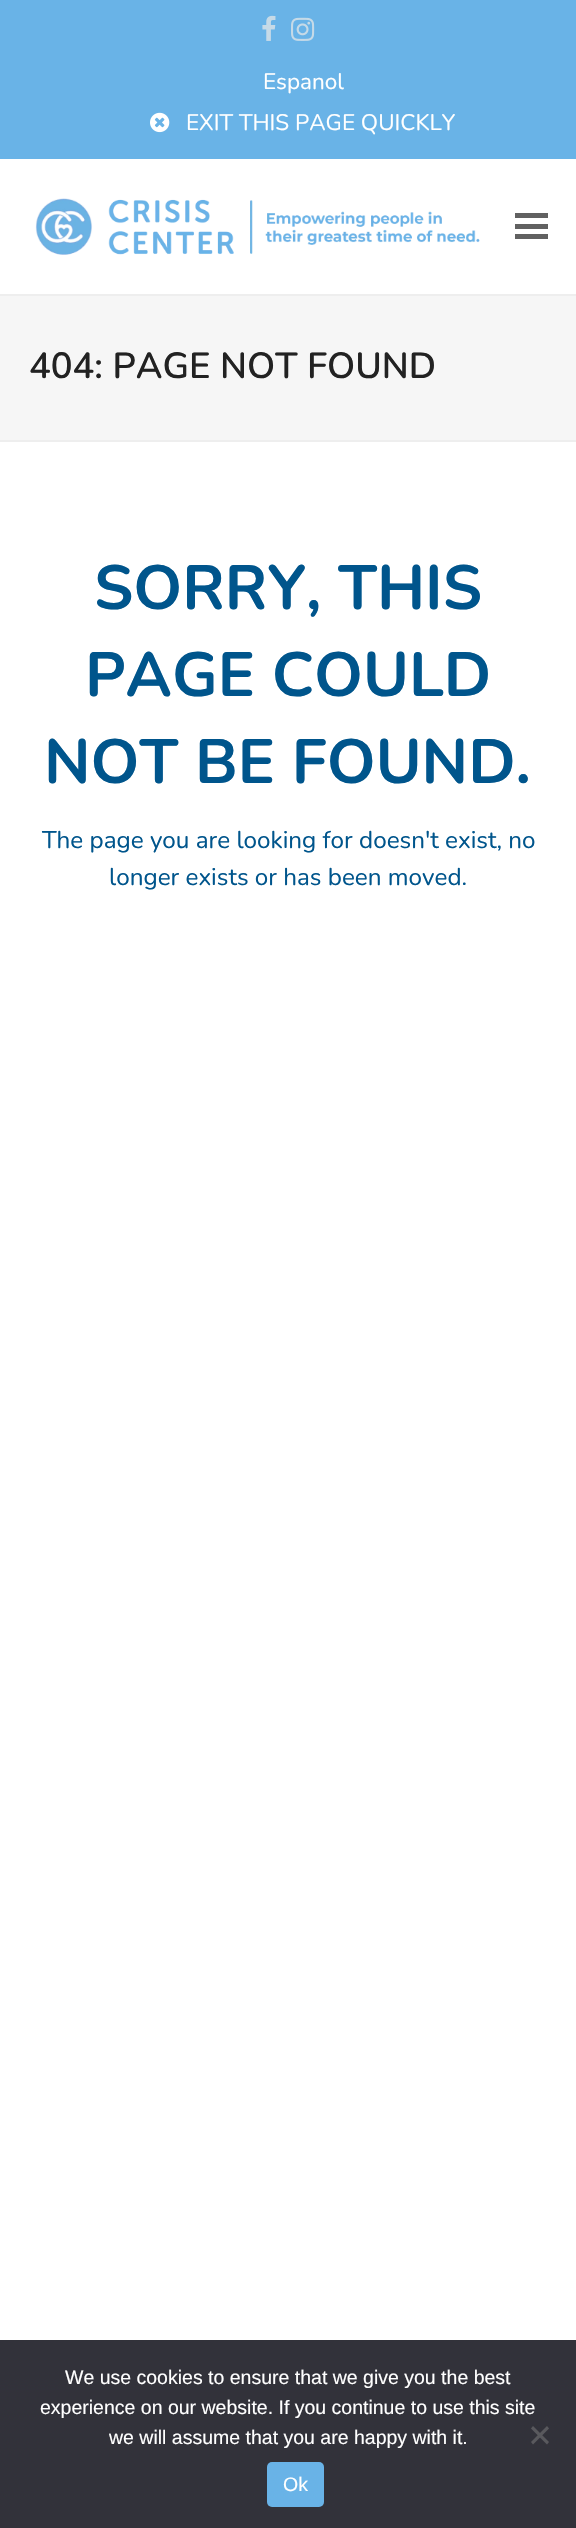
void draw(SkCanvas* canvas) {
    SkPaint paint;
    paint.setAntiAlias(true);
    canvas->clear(0xFFFFFFFF);
    paint.setColor(0xFF69B3E7);
    canvas->drawRect(SkRect::MakeXYWH(0, 0, 576, 159), paint);
    canvas->drawImageRect(SkImages::DeferredFromEncodedData(SkData::MakeFromFileName("img1.png")), SkRect::MakeXYWH(262, 15, 14, 26), SkSamplingOptions());
    canvas->drawImageRect(SkImages::DeferredFromEncodedData(SkData::MakeFromFileName("img2.png")), SkRect::MakeXYWH(291, 17, 24, 24), SkSamplingOptions());
    SkFont font1(fontMgr->matchFamilyStyle("Nunito", SkFontStyle::Normal()), 22.5f);
    font1.setSubpixel(true);
    paint.setColor(0xFFFFFFFF);
    canvas->drawString("Espanol", 263, 89, font1, paint);
    canvas->drawImageRect(SkImages::DeferredFromEncodedData(SkData::MakeFromFileName("img3.png")), SkRect::MakeXYWH(150, 112, 20, 21), SkSamplingOptions());
    canvas->drawString("EXIT THIS PAGE QUICKLY", 186, 130, font1, paint);
    canvas->drawImageRect(SkImages::DeferredFromEncodedData(SkData::MakeFromFileName("img4.png")), SkRect::MakeXYWH(35, 198, 445, 57), SkSamplingOptions());
    paint.setColor(0xFF616161);
    canvas->drawRect(SkRect::MakeXYWH(515, 224, 33, 5), paint);
    canvas->drawRect(SkRect::MakeXYWH(515, 213, 33, 5), paint);
    canvas->drawRect(SkRect::MakeXYWH(515, 234, 33, 5), paint);
    paint.setColor(0xFFF6F6F6);
    canvas->drawRect(SkRect::MakeXYWH(0, 296, 576, 144), paint);
    paint.setColor(0xFFEEEEEE);
    canvas->drawRect(SkRect::MakeXYWH(0, 294, 576, 2), paint);
    canvas->drawRect(SkRect::MakeXYWH(0, 440, 576, 2), paint);
    SkFont font2(fontMgr->matchFamilyStyle("Nunito", SkFontStyle(600, SkFontStyle::kNormal_Width, SkFontStyle::kUpright_Slant)), 36.3f);
    font2.setSubpixel(true);
    paint.setColor(0xFF222222);
    canvas->drawString("404: PAGE NOT FOUND", 29, 378, font2, paint);
    SkFont font3(fontMgr->matchFamilyStyle("Nunito", SkFontStyle::Bold()), 62.25f);
    font3.setSubpixel(true);
    paint.setColor(0xFF00558C);
    canvas->drawString("SORRY, THIS", 94, 609, font3, paint);
    canvas->drawString("PAGE COULD", 85, 696, font3, paint);
    canvas->drawString("NOT BE FOUND.", 44, 783, font3, paint);
    SkFont font4(fontMgr->matchFamilyStyle("Nunito", SkFontStyle::Normal()), 24.25f);
    font4.setSubpixel(true);
    canvas->drawString("The page you are looking for doesn't exist, no", 42, 848, font4, paint);
    canvas->drawString("longer exists or has been moved.", 109, 885, font4, paint);
    paint.setColor(0xFF32323A);
    canvas->drawRect(SkRect::MakeXYWH(0, 2340, 576, 188), paint);
    SkFont font5(fontMgr->matchFamilyStyle("Liberation Sans", SkFontStyle::Normal()), 19.5f);
    font5.setSubpixel(true);
    paint.setColor(0xFFFFFFFF);
    canvas->drawString("We use cookies to ensure that we give you the best", 65, 2384, font5, paint);
    canvas->drawString("experience on our website. If you continue to use this site", 40, 2414, font5, paint);
    canvas->drawString("we will assume that you are happy with it.", 109, 2444, font5, paint);
    paint.setColor(0xFF59595D);
    canvas->drawPath(SkPathBuilder().moveTo(547, 2426).lineTo(549, 2428.5f).lineTo(533, 2444.5f).lineTo(531, 2442).close().detach(), paint);
    canvas->drawPath(SkPathBuilder().moveTo(531, 2428.5f).lineTo(533, 2426).lineTo(549, 2442).lineTo(547, 2444.5f).close().detach(), paint);
    paint.setColor(0xFF69B3E7);
    canvas->drawRoundRect(SkRect::MakeXYWH(267, 2462, 57, 45), 5, 5, paint);
    paint.setColor(0xFFFFFFFF);
    canvas->drawString("Ok", 283, 2491, font5, paint);
}
